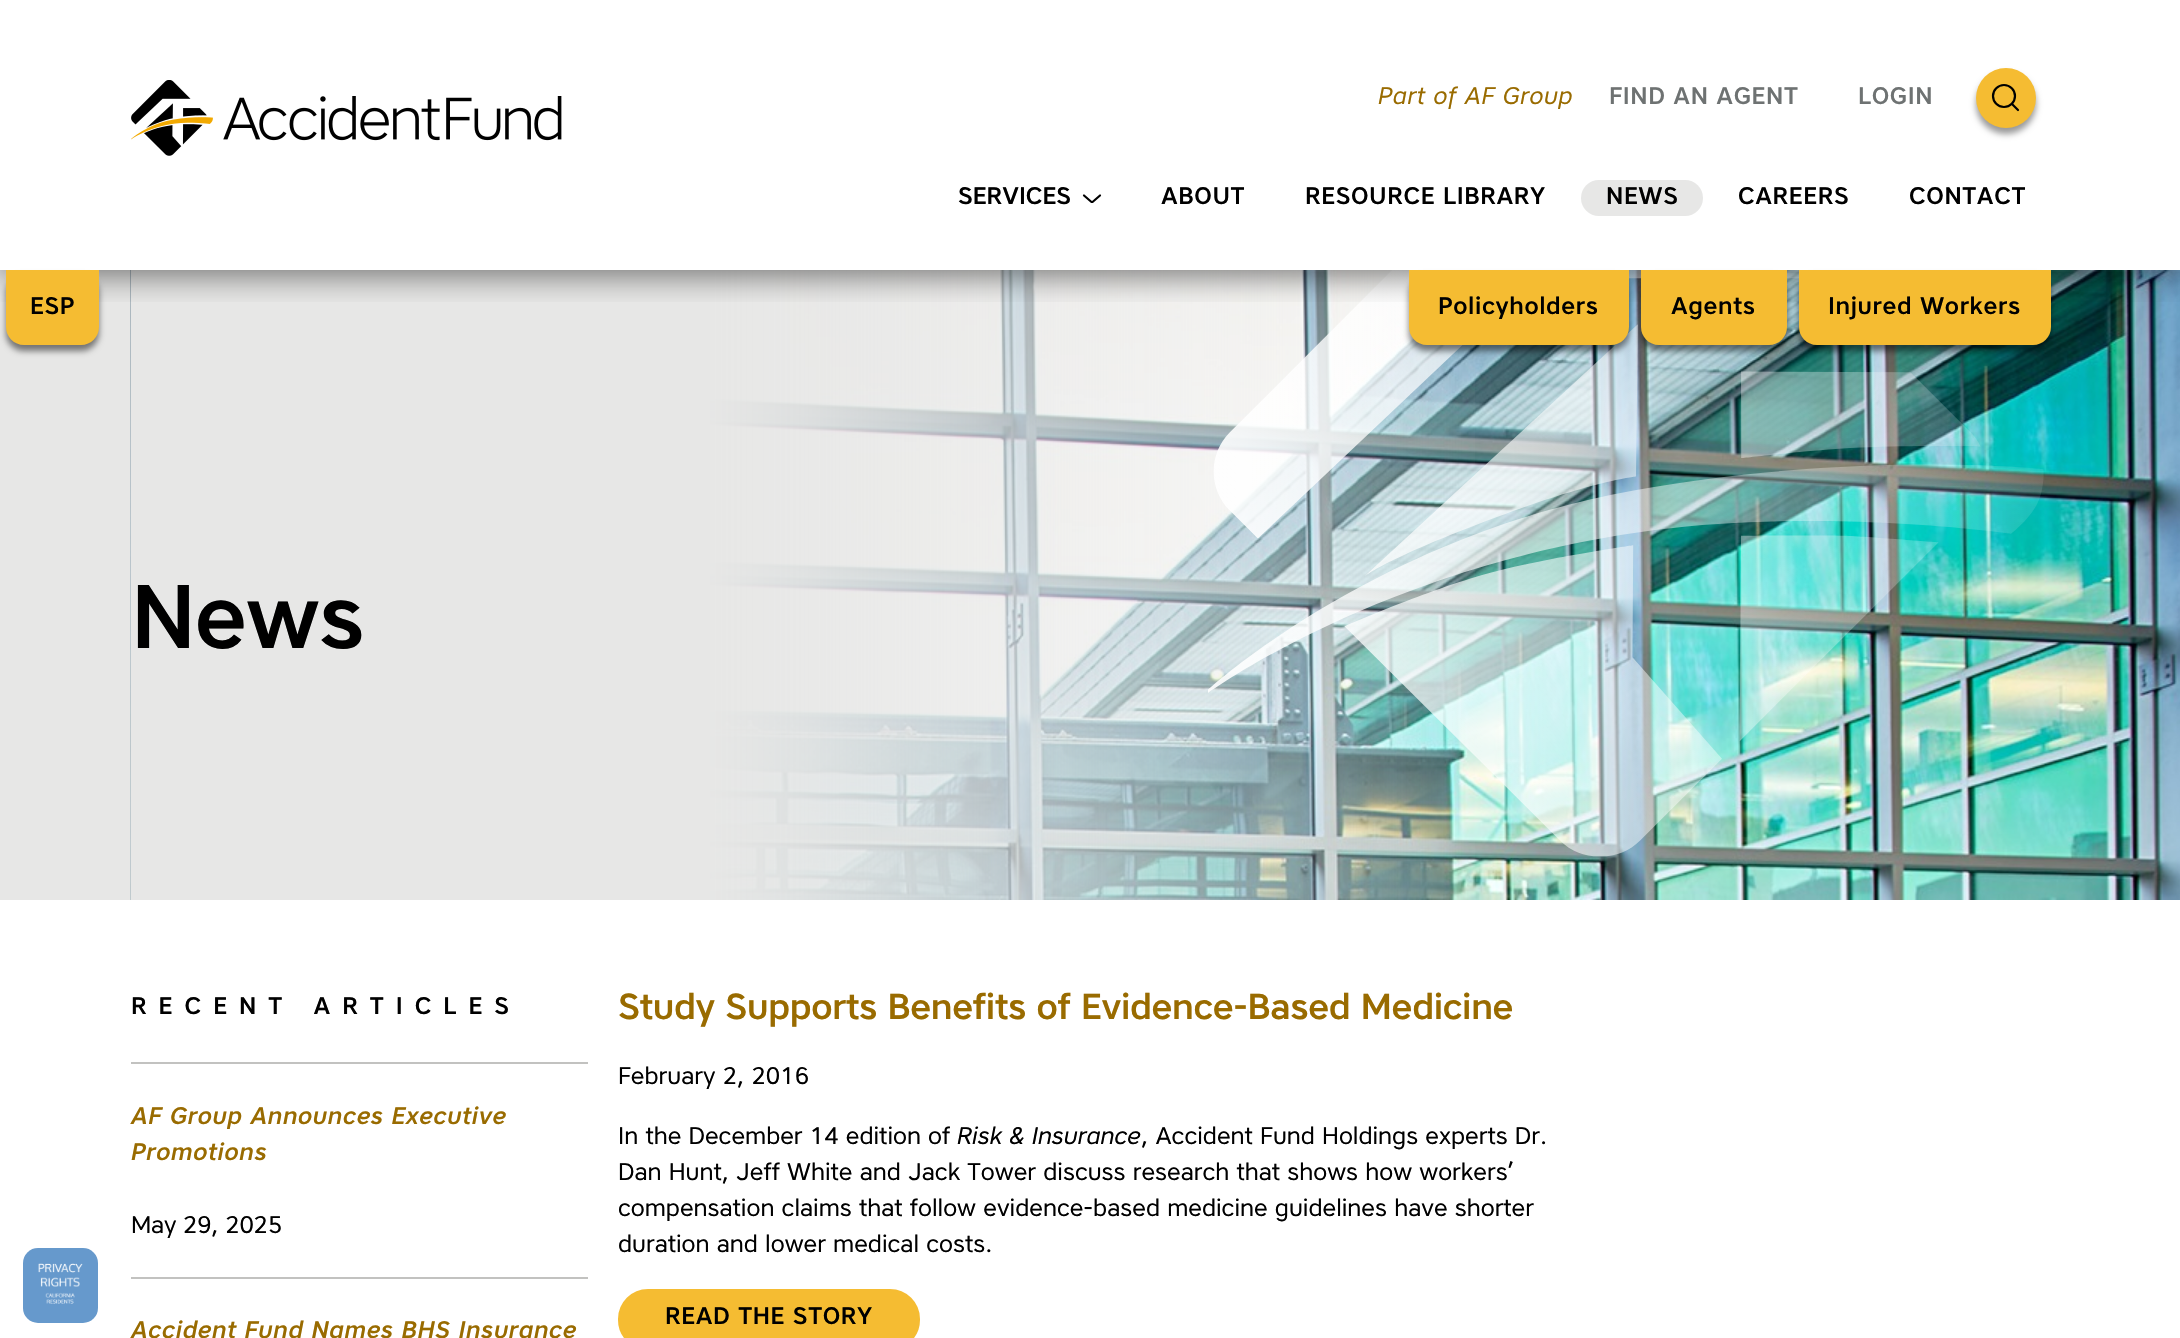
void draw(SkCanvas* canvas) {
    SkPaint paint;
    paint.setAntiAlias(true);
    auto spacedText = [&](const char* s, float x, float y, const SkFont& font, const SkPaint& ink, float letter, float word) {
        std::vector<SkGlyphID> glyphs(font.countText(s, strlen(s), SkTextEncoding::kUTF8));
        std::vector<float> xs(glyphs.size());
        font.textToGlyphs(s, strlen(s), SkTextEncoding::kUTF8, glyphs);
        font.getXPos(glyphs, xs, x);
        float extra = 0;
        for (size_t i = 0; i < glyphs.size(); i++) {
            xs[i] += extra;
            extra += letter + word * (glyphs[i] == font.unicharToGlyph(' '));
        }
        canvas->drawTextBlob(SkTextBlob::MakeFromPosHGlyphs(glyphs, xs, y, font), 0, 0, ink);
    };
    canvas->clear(0xFFFFFFFF);
    paint.setColor(0xFFE7E7E6);
    canvas->drawRect(SkRect::MakeXYWH(0, 270, 131, 630), paint);
    canvas->drawImageRect(SkImages::DeferredFromEncodedData(SkData::MakeFromFileName("img2.png")), SkRect::MakeXYWH(130, 270, 2050, 630), SkSamplingOptions());
    canvas->drawImageRect(SkImages::DeferredFromEncodedData(SkData::MakeFromFileName("img3.png")), SkRect::MakeXYWH(1208, 270, 836, 587), SkSamplingOptions());
    canvas->save();
    canvas->clipRect(SkRect::MakeXYWH(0, 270, 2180, 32));
    paint.setColor(0x80000000);
    paint.setMaskFilter(SkMaskFilter::MakeBlur(kNormal_SkBlurStyle, 15));
    canvas->drawRect(SkRect::MakeXYWH(0, 6, 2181, 270), paint);
    paint.setMaskFilter(nullptr);
    canvas->restore();
    canvas->drawImageRect(SkImages::DeferredFromEncodedData(SkData::MakeFromFileName("img1.png")), SkRect::MakeXYWH(131, 80, 431, 76), SkSamplingOptions());
    SkFont font1(fontMgr->matchFamilyStyle("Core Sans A", SkFontStyle::Italic()), 24);
    font1.setSubpixel(true);
    paint.setColor(0xFF996B00);
    spacedText("Part of AF Group", 1378, 104, font1, paint, 0.6f, 0);
    SkFont font2(fontMgr->matchFamilyStyle("Core Sans A", SkFontStyle::Normal()), 24);
    font2.setSubpixel(true);
    paint.setColor(0xFF6E7272);
    spacedText("FIND AN AGENT", 1609, 104, font2, paint, 0.6f, 0);
    spacedText("LOGIN", 1858, 104, font2, paint, 0.6f, 0);
    paint.setColor(0x66000000);
    paint.setMaskFilter(SkMaskFilter::MakeBlur(kNormal_SkBlurStyle, 3));
    canvas->drawRoundRect(SkRect::MakeXYWH(1976, 74, 60, 60), 30, 30, paint);
    paint.setMaskFilter(nullptr);
    paint.setColor(0xFFF5BC32);
    canvas->drawCircle(2006, 98, 30, paint);
    paint.setStyle(SkPaint::kStroke_Style);
    paint.setStrokeWidth(2.2f);
    paint.setColor(0xFF000000);
    canvas->drawCircle(2004, 96, 11, paint);
    paint.setStrokeCap(SkPaint::kRound_Cap);
    paint.setStrokeJoin(SkPaint::kRound_Join);
    canvas->drawPath(SkPathBuilder().moveTo(2018, 110).lineTo(2012, 104).detach(), paint);
    paint.setStyle(SkPaint::kFill_Style);
    canvas->drawString("SERVICES", 958, 204, font2, paint);
    paint.setStyle(SkPaint::kStroke_Style);
    canvas->drawPath(SkPathBuilder().moveTo(1084, 195.5f).lineTo(1091.5f, 202).cubicTo(1092, 202, 1092, 202, 1092.5f, 202).lineTo(1100, 195.5f).detach(), paint);
    paint.setStyle(SkPaint::kFill_Style);
    spacedText("ABOUT", 1161, 204, font2, paint, 0.6f, 0);
    spacedText("RESOURCE LIBRARY", 1305, 204, font2, paint, 0.6f, 0);
    paint.setColor(0xFFE7E7E6);
    canvas->drawRoundRect(SkRect::MakeXYWH(1581, 180, 122, 36), 18, 18, paint);
    paint.setColor(0xFF000000);
    spacedText("NEWS", 1606, 204, font2, paint, 0.6f, 0);
    spacedText("CAREERS", 1738, 204, font2, paint, 0.6f, 0);
    spacedText("CONTACT", 1909, 204, font2, paint, 0.6f, 0);
    paint.setColor(0x80000000);
    paint.setMaskFilter(SkMaskFilter::MakeBlur(kNormal_SkBlurStyle, 3));
    canvas->drawRoundRect(SkRect::MakeXYWH(6, 276, 93, 75), 18, 18, paint);
    paint.setMaskFilter(nullptr);
    paint.setColor(0xFFF5BC32);
    canvas->drawPath(SkPathBuilder().moveTo(6, 270).lineTo(99, 270).lineTo(99, 327).cubicTo(99, 337, 91, 345, 81, 345).lineTo(24, 345).cubicTo(14, 345, 6, 337, 6, 327).close().detach(), paint);
    paint.setColor(0xFF000000);
    spacedText("ESP", 30, 314, font2, paint, 0.6f, 0);
    paint.setColor(0x80000000);
    paint.setMaskFilter(SkMaskFilter::MakeBlur(kNormal_SkBlurStyle, 3));
    canvas->drawRoundRect(SkRect::MakeXYWH(1409, 276, 220, 75), 18, 18, paint);
    paint.setMaskFilter(nullptr);
    paint.setColor(0xFFF5BC32);
    canvas->drawPath(SkPathBuilder().moveTo(1409, 270).lineTo(1629, 270).lineTo(1629, 327).cubicTo(1629, 337, 1621, 345, 1611, 345).lineTo(1427, 345).cubicTo(1417, 345, 1409, 337, 1409, 327).close().detach(), paint);
    paint.setColor(0xFF000000);
    spacedText("Policyholders", 1438, 314, font2, paint, 0.6f, 0);
    paint.setColor(0x80000000);
    paint.setMaskFilter(SkMaskFilter::MakeBlur(kNormal_SkBlurStyle, 3));
    canvas->drawRoundRect(SkRect::MakeXYWH(1641, 276, 146, 75), 18, 18, paint);
    paint.setMaskFilter(nullptr);
    paint.setColor(0xFFF5BC32);
    canvas->drawPath(SkPathBuilder().moveTo(1641, 270).lineTo(1787, 270).lineTo(1787, 327).cubicTo(1787, 337, 1779, 345, 1769, 345).lineTo(1659, 345).cubicTo(1649, 345, 1641, 337, 1641, 327).close().detach(), paint);
    paint.setColor(0xFF000000);
    spacedText("Agents", 1671, 314, font2, paint, 0.6f, 0);
    paint.setColor(0x80000000);
    paint.setMaskFilter(SkMaskFilter::MakeBlur(kNormal_SkBlurStyle, 3));
    canvas->drawRoundRect(SkRect::MakeXYWH(1799, 276, 252, 75), 18, 18, paint);
    paint.setMaskFilter(nullptr);
    paint.setColor(0xFFF5BC32);
    canvas->drawPath(SkPathBuilder().moveTo(1799, 270).lineTo(2051, 270).lineTo(2051, 327).cubicTo(2051, 337, 2043, 345, 2033, 345).lineTo(1817, 345).cubicTo(1807, 345, 1799, 337, 1799, 327).close().detach(), paint);
    paint.setColor(0xFF000000);
    spacedText("Injured Workers", 1828, 314, font2, paint, 0.6f, 0);
    SkFont font3(fontMgr->matchFamilyStyle("Core Sans A", SkFontStyle::Normal()), 90);
    font3.setSubpixel(true);
    spacedText("News", 131, 648, font3, paint, -1, 0);
    spacedText("RECENT ARTICLES", 131, 1014, font2, paint, 12, 0);
    paint.setColor(0xFFC2C2C0);
    canvas->drawRect(SkRect::MakeXYWH(131, 1062, 457, 2), paint);
    SkFont font4(fontMgr->matchFamilyStyle("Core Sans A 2", SkFontStyle::Italic()), 24);
    font4.setSubpixel(true);
    paint.setColor(0xFF996B00);
    spacedText("AF Group Announces Executive", 131, 1124, font4, paint, 0.6f, 0);
    spacedText("Promotions", 131, 1160, font4, paint, 0.6f, 0);
    SkFont font5(fontMgr->matchFamilyStyle("Core Sans A 2", SkFontStyle::Normal()), 24);
    font5.setSubpixel(true);
    paint.setColor(0xFF000000);
    spacedText("May 29, 2025", 131, 1233, font5, paint, -0.25f, 0);
    paint.setColor(0xFFC2C2C0);
    canvas->drawRect(SkRect::MakeXYWH(131, 1277, 457, 2), paint);
    paint.setColor(0xFF996B00);
    spacedText("Accident Fund Names BHS Insurance", 131, 1338, font4, paint, 0.6f, 0);
    SkFont font6(fontMgr->matchFamilyStyle("Core Sans A", SkFontStyle::Normal()), 36);
    font6.setSubpixel(true);
    spacedText("Study Supports Benefits of Evidence-Based Medicine", 618, 1019, font6, paint, -0.35f, 0);
    paint.setColor(0xFF000000);
    canvas->drawString("February 2, 2016", 618, 1084, font5, paint);
    canvas->drawString("In the December 14 edition of", 618, 1144, font5, paint);
    canvas->drawString("Risk & Insurance", 957, 1144, font1, paint);
    canvas->drawString(", Accident Fund Holdings experts Dr.", 1141, 1144, font5, paint);
    canvas->drawString("Dan Hunt, Jeff White and Jack Tower discuss research that shows how workers’", 618, 1180, font5, paint);
    canvas->drawString("compensation claims that follow evidence-based medicine guidelines have shorter", 618, 1216, font5, paint);
    canvas->drawString("duration and lower medical costs.", 618, 1252, font5, paint);
    paint.setColor(0xFFF5BC32);
    canvas->drawRoundRect(SkRect::MakeXYWH(619, 1290, 300, 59), 29, 29, paint);
    paint.setStyle(SkPaint::kStroke_Style);
    paint.setStrokeWidth(2);
    paint.setStrokeCap(SkPaint::kButt_Cap);
    paint.setStrokeJoin(SkPaint::kMiter_Join);
    canvas->drawRoundRect(SkRect::MakeXYWH(619, 1290, 300, 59), 29, 29, paint);
    paint.setStyle(SkPaint::kFill_Style);
    paint.setColor(0xFF000000);
    spacedText("READ THE STORY", 665, 1324, font2, paint, 0.6f, 0);
    paint.setColor(0xFF6699CC);
    canvas->drawRoundRect(SkRect::MakeXYWH(23, 1248, 75, 75), 15, 15, paint);
    canvas->drawImageRect(SkImages::DeferredFromEncodedData(SkData::MakeFromFileName("img4.png")), SkRect::MakeXYWH(38, 1263, 45, 41), SkSamplingOptions());
}
